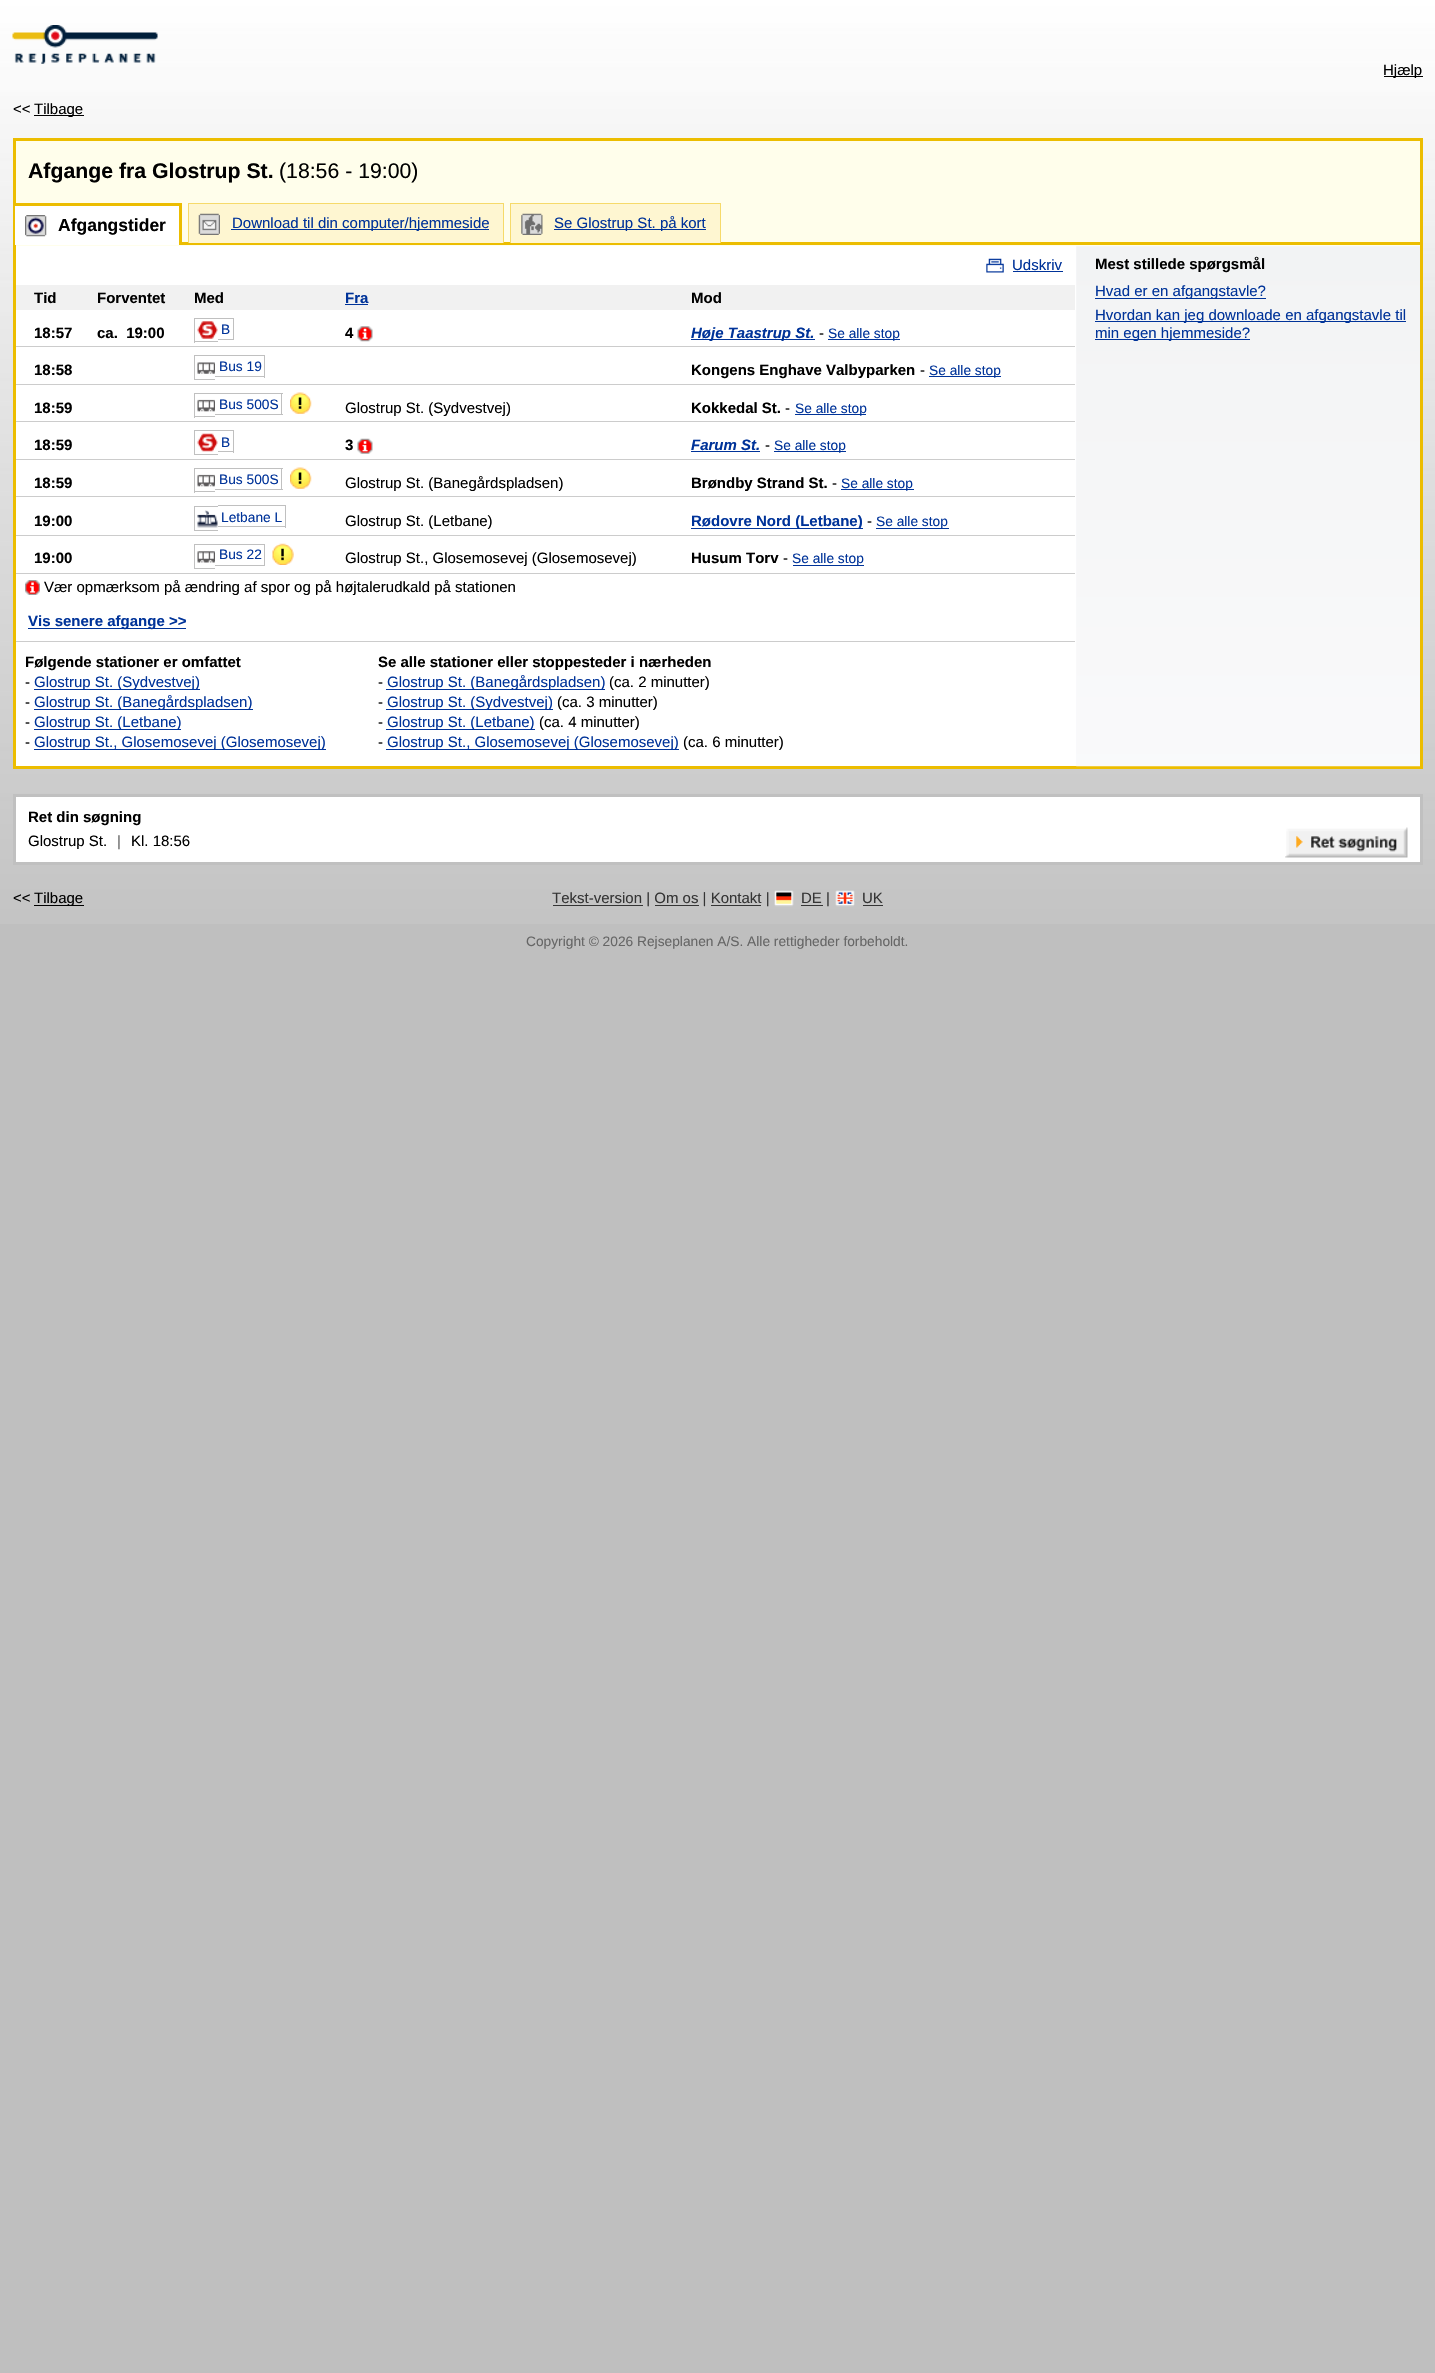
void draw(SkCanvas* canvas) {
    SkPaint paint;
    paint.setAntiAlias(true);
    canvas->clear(0xFFBFBFBF);
    canvas->drawImageRect(SkImages::DeferredFromEncodedData(SkData::MakeFromFileName("img1.png")), SkRect::MakeXYWH(0, 0, 1435, 924), SkSamplingOptions());
    canvas->drawImageRect(SkImages::DeferredFromEncodedData(SkData::MakeFromFileName("img2.png")), SkRect::MakeXYWH(12, 25, 146, 39), SkSamplingOptions());
    paint.setColor(0xFF000000);
    canvas->drawRect(SkRect::MakeXYWH(1384, 76, 39, 1), paint);
    SkFont font1(fontMgr->matchFamilyStyle("Liberation Sans", SkFontStyle::Normal()), 15);
    font1.setSubpixel(true);
    canvas->drawString("Hjælp", 1383, 75, font1, paint);
    canvas->drawString("<<", 13, 114, font1, paint);
    canvas->drawRect(SkRect::MakeXYWH(34, 115, 50, 1), paint);
    canvas->drawString("Tilbage", 34, 114, font1, paint);
    paint.setColor(0xFFFFFEEB);
    canvas->drawRect(SkRect::MakeXYWH(16, 141, 1404, 62), paint);
    paint.setColor(0xFFECBD00);
    canvas->drawRect(SkRect::MakeXYWH(13, 138, 1410, 3), paint);
    canvas->drawRect(SkRect::MakeXYWH(1420, 138, 3, 65), paint);
    canvas->drawRect(SkRect::MakeXYWH(13, 138, 3, 65), paint);
    SkFont font2(fontMgr->matchFamilyStyle("Liberation Sans", SkFontStyle::Bold()), 21.25f);
    font2.setSubpixel(true);
    paint.setColor(0xFF000000);
    canvas->drawString("Afgange fra Glostrup St.", 28, 178, font2, paint);
    SkFont font3(fontMgr->matchFamilyStyle("Liberation Sans", SkFontStyle::Normal()), 21.25f);
    font3.setSubpixel(true);
    canvas->drawString("(18:56 - 19:00)", 279, 178, font3, paint);
    paint.setColor(0xFFFFFEEB);
    canvas->drawRect(SkRect::MakeXYWH(16, 245, 1404, 1), paint);
    canvas->drawRect(SkRect::MakeXYWH(182, 203, 1238, 39), paint);
    paint.setColor(0xFFECBD00);
    canvas->drawRect(SkRect::MakeXYWH(182, 242, 1238, 3), paint);
    canvas->drawRect(SkRect::MakeXYWH(1420, 203, 3, 566), paint);
    canvas->drawRect(SkRect::MakeXYWH(13, 766, 1410, 3), paint);
    canvas->drawRect(SkRect::MakeXYWH(13, 203, 3, 566), paint);
    paint.setColor(0xFFFFFFFF);
    canvas->drawRect(SkRect::MakeXYWH(15, 206, 164, 39), paint);
    canvas->drawImageRect(SkImages::DeferredFromEncodedData(SkData::MakeFromFileName("img3.png")), SkRect::MakeXYWH(25, 215, 22, 22), SkSamplingOptions());
    paint.setColor(0xFFECBD00);
    canvas->drawRect(SkRect::MakeXYWH(15, 203, 166, 3), paint);
    canvas->drawRect(SkRect::MakeXYWH(179, 203, 3, 42), paint);
    SkFont font4(fontMgr->matchFamilyStyle("Liberation Sans", SkFontStyle::Bold()), 17.5f);
    font4.setSubpixel(true);
    paint.setColor(0xFF000000);
    canvas->drawString("Afgangstider", 58, 231, font4, paint);
    paint.setColor(0xFFFEF6D1);
    canvas->drawRect(SkRect::MakeXYWH(189, 204, 314, 39), paint);
    canvas->drawImageRect(SkImages::DeferredFromEncodedData(SkData::MakeFromFileName("img4.png")), SkRect::MakeXYWH(198, 213, 22, 22), SkSamplingOptions());
    paint.setColor(0xFFF6DA6A);
    canvas->drawRect(SkRect::MakeXYWH(188, 203, 316, 1), paint);
    canvas->drawRect(SkRect::MakeXYWH(503, 203, 1, 40), paint);
    canvas->drawRect(SkRect::MakeXYWH(188, 203, 1, 40), paint);
    paint.setColor(0xFF003399);
    canvas->drawRect(SkRect::MakeXYWH(231, 229, 258, 1), paint);
    canvas->drawString("Download til din computer/hjemmeside", 232, 228, font1, paint);
    paint.setColor(0xFFFEF6D1);
    canvas->drawRect(SkRect::MakeXYWH(511, 204, 209, 39), paint);
    canvas->drawImageRect(SkImages::DeferredFromEncodedData(SkData::MakeFromFileName("img5.png")), SkRect::MakeXYWH(521, 213, 22, 22), SkSamplingOptions());
    paint.setColor(0xFFF6DA6A);
    canvas->drawRect(SkRect::MakeXYWH(510, 203, 211, 1), paint);
    canvas->drawRect(SkRect::MakeXYWH(720, 203, 1, 40), paint);
    canvas->drawRect(SkRect::MakeXYWH(510, 203, 1, 40), paint);
    paint.setColor(0xFF003399);
    canvas->drawRect(SkRect::MakeXYWH(554, 229, 152, 1), paint);
    canvas->drawString("Se Glostrup St. på kort", 554, 228, font1, paint);
    paint.setColor(0xFFFFFFFF);
    canvas->drawRect(SkRect::MakeXYWH(16, 246, 1060, 520), paint);
    canvas->drawImageRect(SkImages::DeferredFromEncodedData(SkData::MakeFromFileName("img6.png")), SkRect::MakeXYWH(986, 258, 18, 15), SkSamplingOptions());
    paint.setColor(0xFF003399);
    canvas->drawString("Udskriv", 1012, 270, font1, paint);
    canvas->drawRect(SkRect::MakeXYWH(1013, 271, 50, 1), paint);
    paint.setColor(0xFFF1F1F1);
    canvas->drawRect(SkRect::MakeXYWH(16, 285, 1059, 25), paint);
    SkFont font5(fontMgr->matchFamilyStyle("Liberation Sans", SkFontStyle::Bold()), 15);
    font5.setSubpixel(true);
    paint.setColor(0xFF000000);
    canvas->drawString("Tid", 34, 303, font5, paint);
    canvas->drawString("Forventet", 97, 303, font5, paint);
    canvas->drawString("Med", 194, 303, font5, paint);
    paint.setColor(0xFF003399);
    canvas->drawString("Fra", 345, 303, font5, paint);
    canvas->drawRect(SkRect::MakeXYWH(345, 304, 23, 1), paint);
    paint.setColor(0xFF000000);
    canvas->drawString("Mod", 691, 303, font5, paint);
    paint.setColor(0xFFCCCCCC);
    canvas->drawRect(SkRect::MakeXYWH(16, 346, 1059, 1), paint);
    paint.setColor(0xFF000000);
    canvas->drawString("18:57", 34, 338, font5, paint);
    canvas->drawString("ca.  19:00", 97, 338, font5, paint);
    canvas->drawImageRect(SkImages::DeferredFromEncodedData(SkData::MakeFromFileName("img7.png")), SkRect::MakeXYWH(197, 321, 21, 18), SkSamplingOptions());
    SkFont font6(fontMgr->matchFamilyStyle("Liberation Sans", SkFontStyle::Normal()), 13.75f);
    font6.setSubpixel(true);
    paint.setColor(0xFF003399);
    canvas->drawString("B", 221, 334, font6, paint);
    paint.setColor(0xFFC0C0C0);
    canvas->drawRect(SkRect::MakeXYWH(194, 318, 40, 1), paint);
    canvas->drawRect(SkRect::MakeXYWH(194, 341, 24, 1), paint);
    canvas->drawRect(SkRect::MakeXYWH(194, 318, 1, 25), paint);
    canvas->drawRect(SkRect::MakeXYWH(233, 318, 1, 22), paint);
    canvas->drawRect(SkRect::MakeXYWH(218, 339, 16, 1), paint);
    paint.setColor(0xFF000000);
    canvas->drawString("4", 345, 338, font5, paint);
    canvas->drawImageRect(SkImages::DeferredFromEncodedData(SkData::MakeFromFileName("img8.png")), SkRect::MakeXYWH(357, 326, 16, 16), SkSamplingOptions());
    paint.setColor(0xFF003399);
    canvas->drawRect(SkRect::MakeXYWH(691, 339, 124, 1), paint);
    SkFont font7(fontMgr->matchFamilyStyle("Liberation Sans", SkFontStyle::BoldItalic()), 15);
    font7.setSubpixel(true);
    canvas->drawString("Høje Taastrup St.", 691, 338, font7, paint);
    paint.setColor(0xFF000000);
    canvas->drawString("-", 819, 338, font1, paint);
    paint.setColor(0xFF003399);
    canvas->drawRect(SkRect::MakeXYWH(828, 339, 72, 1), paint);
    canvas->drawString("Se alle stop", 828, 338, font6, paint);
    paint.setColor(0xFFCCCCCC);
    canvas->drawRect(SkRect::MakeXYWH(16, 384, 1059, 1), paint);
    paint.setColor(0xFF000000);
    canvas->drawString("18:58", 34, 375, font5, paint);
    canvas->drawImageRect(SkImages::DeferredFromEncodedData(SkData::MakeFromFileName("img9.png")), SkRect::MakeXYWH(197, 362, 18, 12), SkSamplingOptions());
    paint.setColor(0xFF003399);
    canvas->drawString("Bus 19", 219, 371, font6, paint);
    paint.setColor(0xFFC0C0C0);
    canvas->drawRect(SkRect::MakeXYWH(194, 355, 71, 1), paint);
    canvas->drawRect(SkRect::MakeXYWH(194, 379, 21, 1), paint);
    canvas->drawRect(SkRect::MakeXYWH(194, 355, 1, 25), paint);
    canvas->drawRect(SkRect::MakeXYWH(264, 355, 1, 23), paint);
    canvas->drawRect(SkRect::MakeXYWH(215, 376, 50, 1), paint);
    paint.setColor(0xFF000000);
    canvas->drawString("Kongens Enghave Valbyparken", 691, 375, font5, paint);
    canvas->drawString("-", 920, 375, font1, paint);
    paint.setColor(0xFF003399);
    canvas->drawRect(SkRect::MakeXYWH(929, 376, 72, 1), paint);
    canvas->drawString("Se alle stop", 929, 375, font6, paint);
    paint.setColor(0xFFCCCCCC);
    canvas->drawRect(SkRect::MakeXYWH(16, 421, 1059, 1), paint);
    paint.setColor(0xFF000000);
    canvas->drawString("18:59", 34, 413, font5, paint);
    canvas->drawImageRect(SkImages::DeferredFromEncodedData(SkData::MakeFromFileName("img10.png")), SkRect::MakeXYWH(197, 399, 18, 13), SkSamplingOptions());
    paint.setColor(0xFF003399);
    canvas->drawString("Bus 500S", 219, 409, font6, paint);
    paint.setColor(0xFFC0C0C0);
    canvas->drawRect(SkRect::MakeXYWH(194, 393, 89, 1), paint);
    canvas->drawRect(SkRect::MakeXYWH(194, 416, 21, 1), paint);
    canvas->drawRect(SkRect::MakeXYWH(194, 393, 1, 25), paint);
    canvas->drawRect(SkRect::MakeXYWH(281, 393, 1, 22), paint);
    canvas->drawRect(SkRect::MakeXYWH(215, 414, 68, 1), paint);
    canvas->drawImageRect(SkImages::DeferredFromEncodedData(SkData::MakeFromFileName("img11.png")), SkRect::MakeXYWH(290, 392, 22, 22), SkSamplingOptions());
    paint.setColor(0xFF000000);
    canvas->drawString("Glostrup St. (Sydvestvej)", 345, 413, font1, paint);
    canvas->drawString("Kokkedal St.", 691, 413, font5, paint);
    canvas->drawString("-", 785, 413, font1, paint);
    paint.setColor(0xFF003399);
    canvas->drawRect(SkRect::MakeXYWH(795, 414, 71, 1), paint);
    canvas->drawString("Se alle stop", 795, 413, font6, paint);
    paint.setColor(0xFFCCCCCC);
    canvas->drawRect(SkRect::MakeXYWH(16, 459, 1059, 1), paint);
    paint.setColor(0xFF000000);
    canvas->drawString("18:59", 34, 450, font5, paint);
    canvas->drawImageRect(SkImages::DeferredFromEncodedData(SkData::MakeFromFileName("img12.png")), SkRect::MakeXYWH(197, 433, 21, 19), SkSamplingOptions());
    paint.setColor(0xFF003399);
    canvas->drawString("B", 221, 447, font6, paint);
    paint.setColor(0xFFC0C0C0);
    canvas->drawRect(SkRect::MakeXYWH(194, 430, 40, 1), paint);
    canvas->drawRect(SkRect::MakeXYWH(194, 454, 24, 1), paint);
    canvas->drawRect(SkRect::MakeXYWH(194, 430, 1, 25), paint);
    canvas->drawRect(SkRect::MakeXYWH(233, 430, 1, 23), paint);
    canvas->drawRect(SkRect::MakeXYWH(218, 451, 16, 1), paint);
    paint.setColor(0xFF000000);
    canvas->drawString("3", 345, 450, font5, paint);
    canvas->drawImageRect(SkImages::DeferredFromEncodedData(SkData::MakeFromFileName("img13.png")), SkRect::MakeXYWH(357, 438, 16, 16), SkSamplingOptions());
    paint.setColor(0xFF003399);
    canvas->drawString("Farum St.", 691, 450, font7, paint);
    canvas->drawRect(SkRect::MakeXYWH(691, 451, 69, 1), paint);
    paint.setColor(0xFF000000);
    canvas->drawString("-", 765, 450, font1, paint);
    paint.setColor(0xFF003399);
    canvas->drawRect(SkRect::MakeXYWH(774, 451, 72, 1), paint);
    canvas->drawString("Se alle stop", 774, 450, font6, paint);
    paint.setColor(0xFFCCCCCC);
    canvas->drawRect(SkRect::MakeXYWH(16, 496, 1059, 1), paint);
    paint.setColor(0xFF000000);
    canvas->drawString("18:59", 34, 488, font5, paint);
    canvas->drawImageRect(SkImages::DeferredFromEncodedData(SkData::MakeFromFileName("img10.png")), SkRect::MakeXYWH(197, 474, 18, 13), SkSamplingOptions());
    paint.setColor(0xFF003399);
    canvas->drawString("Bus 500S", 219, 484, font6, paint);
    paint.setColor(0xFFC0C0C0);
    canvas->drawRect(SkRect::MakeXYWH(194, 468, 89, 1), paint);
    canvas->drawRect(SkRect::MakeXYWH(194, 491, 21, 1), paint);
    canvas->drawRect(SkRect::MakeXYWH(194, 468, 1, 25), paint);
    canvas->drawRect(SkRect::MakeXYWH(281, 468, 1, 22), paint);
    canvas->drawRect(SkRect::MakeXYWH(215, 489, 68, 1), paint);
    canvas->drawImageRect(SkImages::DeferredFromEncodedData(SkData::MakeFromFileName("img11.png")), SkRect::MakeXYWH(290, 467, 22, 22), SkSamplingOptions());
    paint.setColor(0xFF000000);
    canvas->drawString("Glostrup St. (Banegårdspladsen)", 345, 488, font1, paint);
    canvas->drawString("Brøndby Strand St.", 691, 488, font5, paint);
    canvas->drawString("-", 832, 488, font1, paint);
    paint.setColor(0xFF003399);
    canvas->drawRect(SkRect::MakeXYWH(841, 489, 73, 1), paint);
    canvas->drawString("Se alle stop", 841, 488, font6, paint);
    paint.setColor(0xFFCCCCCC);
    canvas->drawRect(SkRect::MakeXYWH(16, 535, 1059, 1), paint);
    paint.setColor(0xFF000000);
    canvas->drawString("19:00", 34, 526, font5, paint);
    canvas->drawImageRect(SkImages::DeferredFromEncodedData(SkData::MakeFromFileName("img14.png")), SkRect::MakeXYWH(197, 510, 21, 18), SkSamplingOptions());
    paint.setColor(0xFF003399);
    canvas->drawString("Letbane L", 221, 522, font6, paint);
    paint.setColor(0xFFC0C0C0);
    canvas->drawRect(SkRect::MakeXYWH(194, 506, 24, 1), paint);
    canvas->drawRect(SkRect::MakeXYWH(194, 530, 24, 1), paint);
    canvas->drawRect(SkRect::MakeXYWH(194, 506, 1, 25), paint);
    canvas->drawRect(SkRect::MakeXYWH(218, 505, 68, 1), paint);
    canvas->drawRect(SkRect::MakeXYWH(285, 505, 1, 23), paint);
    canvas->drawRect(SkRect::MakeXYWH(218, 526, 68, 1), paint);
    paint.setColor(0xFF000000);
    canvas->drawString("Glostrup St. (Letbane)", 345, 526, font1, paint);
    paint.setColor(0xFF003399);
    canvas->drawRect(SkRect::MakeXYWH(691, 528, 172, 1), paint);
    canvas->drawString("Rødovre Nord (Letbane)", 691, 526, font5, paint);
    paint.setColor(0xFF000000);
    canvas->drawString("-", 867, 526, font1, paint);
    paint.setColor(0xFF003399);
    canvas->drawRect(SkRect::MakeXYWH(876, 528, 73, 1), paint);
    canvas->drawString("Se alle stop", 876, 526, font6, paint);
    paint.setColor(0xFFCCCCCC);
    canvas->drawRect(SkRect::MakeXYWH(16, 573, 1059, 1), paint);
    paint.setColor(0xFF000000);
    canvas->drawString("19:00", 34, 563, font5, paint);
    canvas->drawImageRect(SkImages::DeferredFromEncodedData(SkData::MakeFromFileName("img15.png")), SkRect::MakeXYWH(197, 551, 18, 12), SkSamplingOptions());
    paint.setColor(0xFF003399);
    canvas->drawString("Bus 22", 219, 559, font6, paint);
    paint.setColor(0xFFC0C0C0);
    canvas->drawRect(SkRect::MakeXYWH(194, 544, 71, 1), paint);
    canvas->drawRect(SkRect::MakeXYWH(194, 568, 21, 1), paint);
    canvas->drawRect(SkRect::MakeXYWH(194, 544, 1, 25), paint);
    canvas->drawRect(SkRect::MakeXYWH(264, 544, 1, 22), paint);
    canvas->drawRect(SkRect::MakeXYWH(215, 565, 50, 1), paint);
    canvas->drawImageRect(SkImages::DeferredFromEncodedData(SkData::MakeFromFileName("img16.png")), SkRect::MakeXYWH(272, 543, 22, 22), SkSamplingOptions());
    paint.setColor(0xFF000000);
    canvas->drawString("Glostrup St., Glosemosevej (Glosemosevej)", 345, 563, font1, paint);
    canvas->drawString("Husum Torv", 691, 563, font5, paint);
    canvas->drawString("-", 783, 563, font1, paint);
    paint.setColor(0xFF003399);
    canvas->drawRect(SkRect::MakeXYWH(793, 565, 71, 1), paint);
    canvas->drawString("Se alle stop", 792, 563, font6, paint);
    canvas->drawImageRect(SkImages::DeferredFromEncodedData(SkData::MakeFromFileName("img17.png")), SkRect::MakeXYWH(25, 580, 15, 15), SkSamplingOptions());
    paint.setColor(0xFF000000);
    canvas->drawString("Vær opmærksom på ændring af spor og på højtalerudkald på stationen", 44, 592, font1, paint);
    paint.setColor(0xFFCCCCCC);
    canvas->drawRect(SkRect::MakeXYWH(16, 641, 1059, 1), paint);
    paint.setColor(0xFF003399);
    canvas->drawRect(SkRect::MakeXYWH(28, 628, 158, 1), paint);
    canvas->drawString("Vis senere afgange >>", 28, 626, font5, paint);
    paint.setColor(0xFF000000);
    canvas->drawString("Følgende stationer er omfattet", 25, 667, font5, paint);
    canvas->drawString("-", 25, 687, font1, paint);
    paint.setColor(0xFF003399);
    canvas->drawRect(SkRect::MakeXYWH(34, 689, 166, 1), paint);
    canvas->drawString("Glostrup St. (Sydvestvej)", 34, 687, font1, paint);
    paint.setColor(0xFF000000);
    canvas->drawString("-", 25, 707, font1, paint);
    paint.setColor(0xFF003399);
    canvas->drawRect(SkRect::MakeXYWH(34, 709, 219, 1), paint);
    canvas->drawString("Glostrup St. (Banegårdspladsen)", 34, 707, font1, paint);
    paint.setColor(0xFF000000);
    canvas->drawString("-", 25, 727, font1, paint);
    paint.setColor(0xFF003399);
    canvas->drawRect(SkRect::MakeXYWH(34, 729, 147, 1), paint);
    canvas->drawString("Glostrup St. (Letbane)", 34, 727, font1, paint);
    paint.setColor(0xFF000000);
    canvas->drawString("-", 25, 747, font1, paint);
    paint.setColor(0xFF003399);
    canvas->drawRect(SkRect::MakeXYWH(34, 749, 292, 1), paint);
    canvas->drawString("Glostrup St., Glosemosevej (Glosemosevej)", 34, 747, font1, paint);
    paint.setColor(0xFF000000);
    canvas->drawString("Se alle stationer eller stoppesteder i nærheden", 378, 667, font5, paint);
    canvas->drawString("-", 378, 687, font1, paint);
    paint.setColor(0xFF003399);
    canvas->drawRect(SkRect::MakeXYWH(386, 689, 219, 1), paint);
    canvas->drawString("Glostrup St. (Banegårdspladsen)", 387, 687, font1, paint);
    paint.setColor(0xFF000000);
    canvas->drawString("(ca. 2 minutter)", 609, 687, font1, paint);
    canvas->drawString("-", 378, 707, font1, paint);
    paint.setColor(0xFF003399);
    canvas->drawRect(SkRect::MakeXYWH(386, 709, 167, 1), paint);
    canvas->drawString("Glostrup St. (Sydvestvej)", 387, 707, font1, paint);
    paint.setColor(0xFF000000);
    canvas->drawString("(ca. 3 minutter)", 557, 707, font1, paint);
    canvas->drawString("-", 378, 727, font1, paint);
    paint.setColor(0xFF003399);
    canvas->drawRect(SkRect::MakeXYWH(386, 729, 149, 1), paint);
    canvas->drawString("Glostrup St. (Letbane)", 387, 727, font1, paint);
    paint.setColor(0xFF000000);
    canvas->drawString("(ca. 4 minutter)", 539, 727, font1, paint);
    canvas->drawString("-", 378, 747, font1, paint);
    paint.setColor(0xFF003399);
    canvas->drawRect(SkRect::MakeXYWH(386, 749, 293, 1), paint);
    canvas->drawString("Glostrup St., Glosemosevej (Glosemosevej)", 387, 747, font1, paint);
    paint.setColor(0xFF000000);
    canvas->drawString("(ca. 6 minutter)", 683, 747, font1, paint);
    paint.setColor(0xFFFBFBFC);
    canvas->drawRect(SkRect::MakeXYWH(1076, 246, 344, 520), paint);
    canvas->drawImageRect(SkImages::DeferredFromEncodedData(SkData::MakeFromFileName("img18.png")), SkRect::MakeXYWH(1076, 246, 344, 521), SkSamplingOptions());
    paint.setColor(0xFF000000);
    canvas->drawString("Mest stillede spørgsmål", 1095, 269, font5, paint);
    paint.setColor(0xFF003399);
    canvas->drawRect(SkRect::MakeXYWH(1095, 298, 171, 1), paint);
    canvas->drawString("Hvad er en afgangstavle?", 1095, 296, font1, paint);
    canvas->drawRect(SkRect::MakeXYWH(1095, 321, 311, 1), paint);
    canvas->drawString("Hvordan kan jeg downloade en afgangstavle til", 1095, 320, font1, paint);
    canvas->drawRect(SkRect::MakeXYWH(1095, 339, 155, 1), paint);
    canvas->drawString("min egen hjemmeside?", 1095, 338, font1, paint);
    paint.setColor(0xFFFFFFFF);
    canvas->drawRect(SkRect::MakeXYWH(14.5f, 795.5f, 1407, 68), paint);
    paint.setStyle(SkPaint::kStroke_Style);
    paint.setStrokeWidth(3);
    paint.setColor(0xFFC0C0C0);
    canvas->drawRect(SkRect::MakeXYWH(14.5f, 795.5f, 1407, 68), paint);
    paint.setStyle(SkPaint::kFill_Style);
    paint.setColor(0xFF000000);
    canvas->drawString("Ret din søgning", 28, 822, font5, paint);
    canvas->drawString("Glostrup St.", 28, 846, font1, paint);
    paint.setColor(0xFF666666);
    canvas->drawString("|", 117, 846, font1, paint);
    paint.setColor(0xFF000000);
    canvas->drawString("Kl. 18:56", 131, 846, font1, paint);
    canvas->drawImageRect(SkImages::DeferredFromEncodedData(SkData::MakeFromFileName("img19.png")), SkRect::MakeXYWH(1285, 827, 123, 31), SkSamplingOptions());
    canvas->drawString("<<", 13, 903, font1, paint);
    canvas->drawRect(SkRect::MakeXYWH(34, 905, 50, 1), paint);
    canvas->drawString("Tilbage", 34, 903, font1, paint);
    paint.setColor(0xFF353535);
    canvas->drawRect(SkRect::MakeXYWH(553, 905, 90, 1), paint);
    canvas->drawString("Tekst-version | Om os | Kontakt |", 552, 903, font1, paint);
    canvas->drawImageRect(SkImages::DeferredFromEncodedData(SkData::MakeFromFileName("img20.png")), SkRect::MakeXYWH(774, 890, 20, 17), SkSamplingOptions());
    canvas->drawRect(SkRect::MakeXYWH(801, 905, 22, 1), paint);
    canvas->drawString("DE |", 801, 903, font1, paint);
    canvas->drawImageRect(SkImages::DeferredFromEncodedData(SkData::MakeFromFileName("img21.png")), SkRect::MakeXYWH(835, 890, 20, 17), SkSamplingOptions());
    canvas->drawString("UK", 862, 903, font1, paint);
    canvas->drawRect(SkRect::MakeXYWH(863, 905, 20, 1), paint);
    canvas->drawRect(SkRect::MakeXYWH(655, 905, 44, 1), paint);
    canvas->drawRect(SkRect::MakeXYWH(711, 905, 50, 1), paint);
    paint.setColor(0xFF666666);
    canvas->drawString("Copyright © 2026 Rejseplanen A/S. Alle rettigheder forbeholdt.", 526, 946, font6, paint);
}
